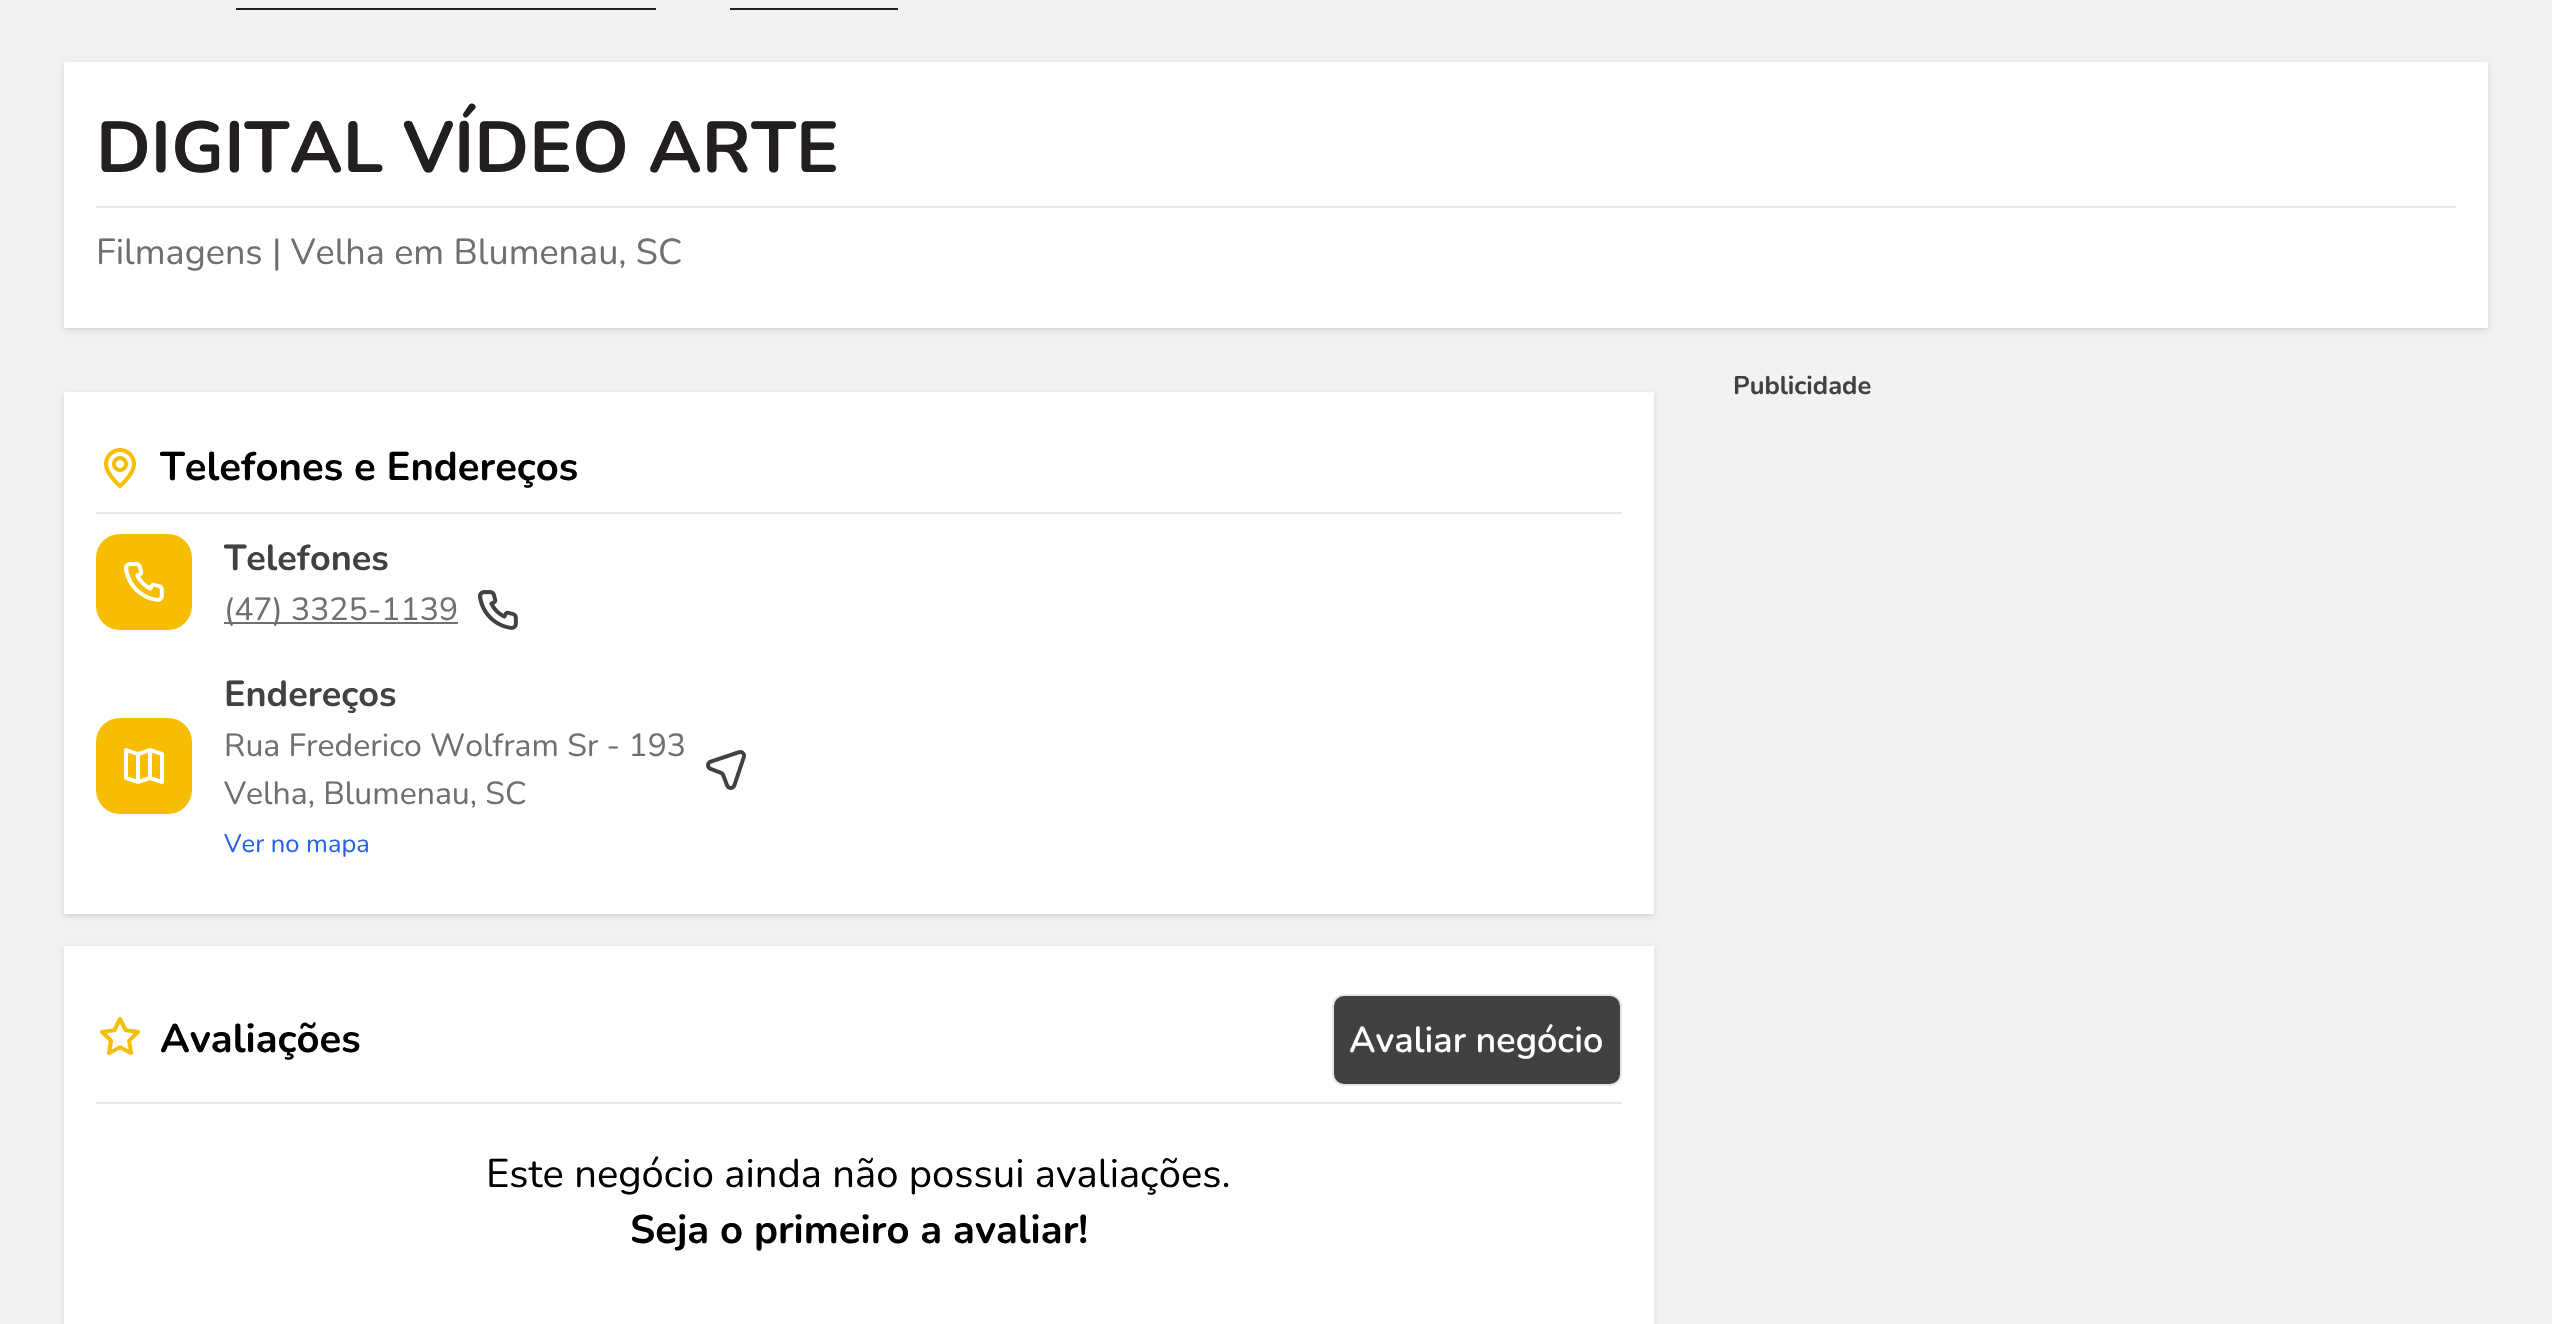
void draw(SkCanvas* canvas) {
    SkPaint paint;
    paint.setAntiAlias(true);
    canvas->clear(0xFFF2F2F2);
    paint.setColor(0xFF231F20);
    canvas->drawRect(SkRect::MakeXYWH(236, 8, 420, 2), paint);
    canvas->drawRect(SkRect::MakeXYWH(730, 8, 168, 2), paint);
    paint.setColor(0x1A000000);
    paint.setMaskFilter(SkMaskFilter::MakeBlur(kNormal_SkBlurStyle, 2));
    canvas->drawRect(SkRect::MakeXYWH(66, 66, 2420, 262), paint);
    paint.setMaskFilter(nullptr);
    paint.setMaskFilter(SkMaskFilter::MakeBlur(kNormal_SkBlurStyle, 3));
    canvas->drawRect(SkRect::MakeXYWH(64, 64, 2424, 266), paint);
    paint.setMaskFilter(nullptr);
    paint.setColor(0xFFFFFFFF);
    canvas->drawRect(SkRect::MakeXYWH(64, 62, 2424, 266), paint);
    SkFont font1(fontMgr->matchFamilyStyle("Nunito", SkFontStyle::Bold()), 72);
    font1.setSubpixel(true);
    paint.setColor(0xFF231F20);
    canvas->drawString("DIGITAL VÍDEO ARTE", 96, 172, font1, paint);
    paint.setColor(0xFFE5E7EB);
    canvas->drawRect(SkRect::MakeXYWH(96, 206, 2360, 2), paint);
    SkFont font2(fontMgr->matchFamilyStyle("Nunito", SkFontStyle::Normal()), 36);
    font2.setSubpixel(true);
    paint.setColor(0xFF6F6F6F);
    canvas->drawString("Filmagens | Velha em Blumenau, SC", 96, 264, font2, paint);
    SkFont font3(fontMgr->matchFamilyStyle("Nunito", SkFontStyle::Bold()), 25.5f);
    font3.setSubpixel(true);
    paint.setColor(0xFF414042);
    canvas->drawString("Publicidade", 1733, 394, font3, paint);
    paint.setColor(0x1A000000);
    paint.setMaskFilter(SkMaskFilter::MakeBlur(kNormal_SkBlurStyle, 2));
    canvas->drawRect(SkRect::MakeXYWH(66, 396, 1586, 518), paint);
    paint.setMaskFilter(nullptr);
    paint.setMaskFilter(SkMaskFilter::MakeBlur(kNormal_SkBlurStyle, 3));
    canvas->drawRect(SkRect::MakeXYWH(64, 394, 1590, 522), paint);
    paint.setMaskFilter(nullptr);
    paint.setColor(0xFFFFFFFF);
    canvas->drawRect(SkRect::MakeXYWH(64, 392, 1590, 522), paint);
    canvas->drawImageRect(SkImages::DeferredFromEncodedData(SkData::MakeFromFileName("img1.png")), SkRect::MakeXYWH(104, 448, 32, 40), SkSamplingOptions());
    SkFont font4(fontMgr->matchFamilyStyle("Nunito", SkFontStyle::Bold()), 40);
    font4.setSubpixel(true);
    paint.setColor(0xFF000000);
    canvas->drawString("Telefones e Endereços", 160, 480, font4, paint);
    paint.setColor(0xFFE5E7EB);
    canvas->drawRect(SkRect::MakeXYWH(96, 512, 1526, 2), paint);
    paint.setColor(0xFFF7BE01);
    canvas->drawRoundRect(SkRect::MakeXYWH(96, 534, 96, 96), 24, 24, paint);
    canvas->drawImageRect(SkImages::DeferredFromEncodedData(SkData::MakeFromFileName("img2.png")), SkRect::MakeXYWH(124, 562, 40, 40), SkSamplingOptions());
    SkFont font5(fontMgr->matchFamilyStyle("Nunito", SkFontStyle::Bold()), 36);
    font5.setSubpixel(true);
    paint.setColor(0xFF414042);
    canvas->drawString("Telefones", 224, 570, font5, paint);
    paint.setColor(0xFF6F6F6F);
    canvas->drawRect(SkRect::MakeXYWH(224, 622, 234, 2), paint);
    SkFont font6(fontMgr->matchFamilyStyle("Nunito", SkFontStyle::Normal()), 32);
    font6.setSubpixel(true);
    canvas->drawString("(47) 3325-1139", 224, 620, font6, paint);
    canvas->drawImageRect(SkImages::DeferredFromEncodedData(SkData::MakeFromFileName("img3.png")), SkRect::MakeXYWH(478, 590, 40, 40), SkSamplingOptions());
    paint.setColor(0xFFF7BE01);
    canvas->drawRoundRect(SkRect::MakeXYWH(96, 718, 96, 96), 24, 24, paint);
    canvas->drawImageRect(SkImages::DeferredFromEncodedData(SkData::MakeFromFileName("img4.png")), SkRect::MakeXYWH(124, 748, 40, 36), SkSamplingOptions());
    paint.setColor(0xFF414042);
    canvas->drawString("Endereços", 224, 706, font5, paint);
    paint.setColor(0xFF6F6F6F);
    canvas->drawString("Rua Frederico Wolfram Sr - 193", 224, 756, font6, paint);
    canvas->drawString("Velha, Blumenau, SC", 224, 804, font6, paint);
    canvas->drawImageRect(SkImages::DeferredFromEncodedData(SkData::MakeFromFileName("img5.png")), SkRect::MakeXYWH(706, 750, 40, 40), SkSamplingOptions());
    SkFont font7(fontMgr->matchFamilyStyle("Nunito", SkFontStyle::Normal()), 25.5f);
    font7.setSubpixel(true);
    paint.setColor(0xFF2563EB);
    canvas->drawString("Ver no mapa", 224, 852, font7, paint);
    paint.setColor(0x1A000000);
    paint.setMaskFilter(SkMaskFilter::MakeBlur(kNormal_SkBlurStyle, 3));
    canvas->drawRect(SkRect::MakeXYWH(64, 948, 1590, 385), paint);
    paint.setMaskFilter(nullptr);
    paint.setColor(0xFFFFFFFF);
    canvas->drawRect(SkRect::MakeXYWH(64, 946, 1590, 378), paint);
    canvas->drawImageRect(SkImages::DeferredFromEncodedData(SkData::MakeFromFileName("img6.png")), SkRect::MakeXYWH(100, 1016, 41, 40), SkSamplingOptions());
    paint.setColor(0xFF000000);
    canvas->drawString("Avaliações", 160, 1052, font4, paint);
    paint.setColor(0xFF414042);
    canvas->drawRoundRect(SkRect::MakeXYWH(1333, 995, 288, 90), 11, 11, paint);
    paint.setStyle(SkPaint::kStroke_Style);
    paint.setStrokeWidth(2);
    paint.setColor(0xFFE5E7EB);
    canvas->drawRoundRect(SkRect::MakeXYWH(1333, 995, 288, 90), 11, 11, paint);
    SkFont font8(fontMgr->matchFamilyStyle("Nunito", SkFontStyle(600, SkFontStyle::kNormal_Width, SkFontStyle::kUpright_Slant)), 36);
    font8.setSubpixel(true);
    paint.setStyle(SkPaint::kFill_Style);
    paint.setColor(0xFFFFFFFF);
    canvas->drawString("Avaliar negócio", 1349, 1052, font8, paint);
    paint.setColor(0xFFE5E7EB);
    canvas->drawRect(SkRect::MakeXYWH(96, 1102, 1526, 2), paint);
    SkFont font9(fontMgr->matchFamilyStyle("Nunito", SkFontStyle::Normal()), 40);
    font9.setSubpixel(true);
    paint.setColor(0xFF000000);
    canvas->drawString("Este negócio ainda não possui avaliações.", 486, 1187, font9, paint);
    canvas->drawString("Seja o primeiro a avaliar!", 630, 1243, font4, paint);
}
